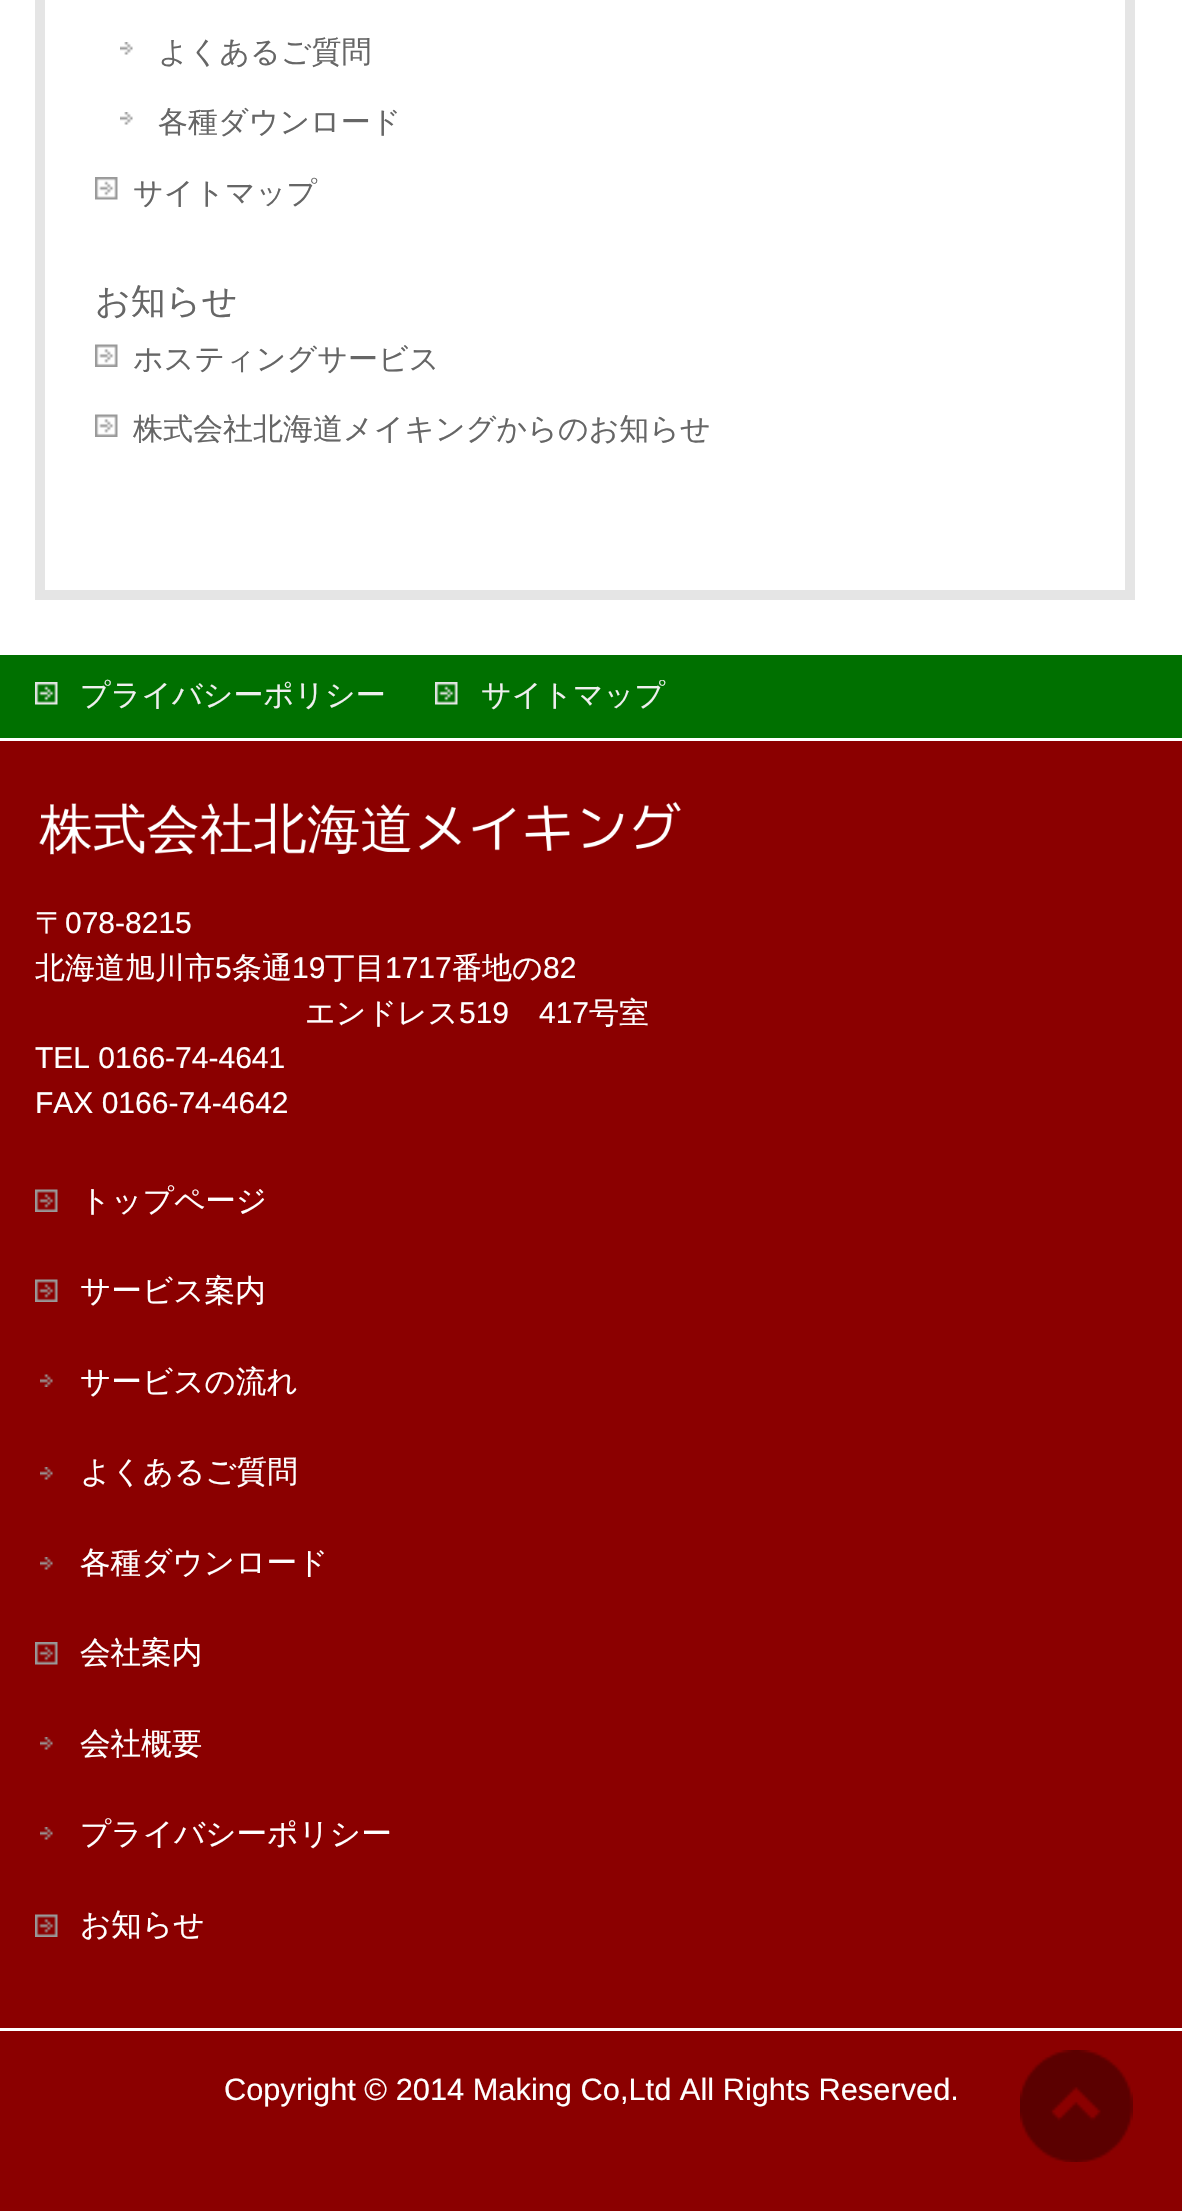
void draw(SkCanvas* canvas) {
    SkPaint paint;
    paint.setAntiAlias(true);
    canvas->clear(0xFFFFFFFF);
    paint.setStyle(SkPaint::kStroke_Style);
    paint.setStrokeWidth(10);
    paint.setColor(0xFFE5E5E5);
    canvas->drawRect(SkRect::MakeXYWH(40, -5, 1090, 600), paint);
    canvas->drawImageRect(SkImages::DeferredFromEncodedData(SkData::MakeFromFileName("img1.png")), SkRect::MakeXYWH(120, 42, 13, 13), SkSamplingOptions());
    SkFont font1(fontMgr->matchFamilyStyle("WenQuanYi Zen Hei", SkFontStyle(500, SkFontStyle::kNormal_Width, SkFontStyle::kUpright_Slant)), 30);
    font1.setSubpixel(true);
    paint.setStyle(SkPaint::kFill_Style);
    paint.setColor(0xFF666666);
    canvas->drawString("よくあるご質問", 158, 62, font1, paint);
    canvas->drawImageRect(SkImages::DeferredFromEncodedData(SkData::MakeFromFileName("img1.png")), SkRect::MakeXYWH(120, 112, 13, 13), SkSamplingOptions());
    canvas->drawString("各種ダウンロード", 158, 132, font1, paint);
    canvas->drawImageRect(SkImages::DeferredFromEncodedData(SkData::MakeFromFileName("img2.png")), SkRect::MakeXYWH(95, 177, 23, 23), SkSamplingOptions());
    canvas->drawString("サイトマップ", 133, 203, font1, paint);
    SkFont font2(fontMgr->matchFamilyStyle("WenQuanYi Zen Hei", SkFontStyle(500, SkFontStyle::kNormal_Width, SkFontStyle::kUpright_Slant)), 35);
    font2.setSubpixel(true);
    canvas->drawString("お知らせ", 95, 313, font2, paint);
    canvas->drawImageRect(SkImages::DeferredFromEncodedData(SkData::MakeFromFileName("img3.png")), SkRect::MakeXYWH(95, 344, 23, 23), SkSamplingOptions());
    canvas->drawString("ホスティングサービス", 133, 369, font1, paint);
    canvas->drawImageRect(SkImages::DeferredFromEncodedData(SkData::MakeFromFileName("img3.png")), SkRect::MakeXYWH(95, 414, 23, 23), SkSamplingOptions());
    canvas->drawString("株式会社北海道メイキングからのお知らせ", 133, 439, font1, paint);
    paint.setColor(0xFF007000);
    canvas->drawRect(SkRect::MakeXYWH(0, 655, 1182, 83), paint);
    canvas->drawImageRect(SkImages::DeferredFromEncodedData(SkData::MakeFromFileName("img4.png")), SkRect::MakeXYWH(35, 682, 23, 23), SkSamplingOptions());
    paint.setColor(0xFFEFEFEF);
    canvas->drawString("プライバシーポリシー", 80, 705, font1, paint);
    canvas->drawImageRect(SkImages::DeferredFromEncodedData(SkData::MakeFromFileName("img4.png")), SkRect::MakeXYWH(435, 682, 23, 23), SkSamplingOptions());
    canvas->save();
    canvas->clipRect(SkRect::MakeXYWH(35, 680, 1113, 33));
    canvas->drawString("サイトマップ", 481, 705, font1, paint);
    canvas->restore();
    paint.setColor(0xFF8B0000);
    canvas->drawRect(SkRect::MakeXYWH(0, 741, 1182, 1287), paint);
    canvas->drawImageRect(SkImages::DeferredFromEncodedData(SkData::MakeFromFileName("img5.png")), SkRect::MakeXYWH(39, 801, 642, 54), SkSamplingOptions());
    paint.setColor(0xFFFFFFFF);
    canvas->drawString("〒", 35, 933, font1, paint);
    SkFont font3(fontMgr->matchFamilyStyle("Liberation Sans", SkFontStyle::Normal()), 30);
    font3.setSubpixel(true);
    canvas->drawString("078-8215", 65, 933, font3, paint);
    canvas->drawString("北海道旭川市", 35, 978, font1, paint);
    canvas->drawString("5", 215, 978, font3, paint);
    canvas->drawString("条通", 232, 978, font1, paint);
    canvas->drawString("19", 292, 978, font3, paint);
    canvas->drawString("丁目", 325, 978, font1, paint);
    canvas->drawString("1717", 385, 978, font3, paint);
    canvas->drawString("番地の", 452, 978, font1, paint);
    canvas->drawString("82", 543, 978, font3, paint);
    canvas->drawString("エンドレス", 305, 1023, font1, paint);
    canvas->drawString("519", 459, 1023, font3, paint);
    canvas->drawString("417", 539, 1023, font3, paint);
    canvas->drawString("号室", 589, 1023, font1, paint);
    canvas->drawString("TEL 0166-74-4641", 35, 1068, font3, paint);
    canvas->drawString("FAX 0166-74-4642", 35, 1113, font3, paint);
    canvas->drawImageRect(SkImages::DeferredFromEncodedData(SkData::MakeFromFileName("img6.png")), SkRect::MakeXYWH(35, 1189, 23, 23), SkSamplingOptions());
    SkFont font4(fontMgr->matchFamilyStyle("WenQuanYi Zen Hei", SkFontStyle(500, SkFontStyle::kNormal_Width, SkFontStyle::kUpright_Slant)), 30.6f);
    font4.setSubpixel(true);
    canvas->drawString("トップページ", 80, 1211, font4, paint);
    canvas->drawImageRect(SkImages::DeferredFromEncodedData(SkData::MakeFromFileName("img6.png")), SkRect::MakeXYWH(35, 1279, 23, 23), SkSamplingOptions());
    canvas->drawString("サービス案内", 80, 1301, font4, paint);
    canvas->drawImageRect(SkImages::DeferredFromEncodedData(SkData::MakeFromFileName("img7.png")), SkRect::MakeXYWH(40, 1374, 13, 13), SkSamplingOptions());
    canvas->drawString("サービスの流れ", 80, 1392, font4, paint);
    canvas->drawImageRect(SkImages::DeferredFromEncodedData(SkData::MakeFromFileName("img8.png")), SkRect::MakeXYWH(40, 1467, 13, 13), SkSamplingOptions());
    canvas->drawString("よくあるご質問", 80, 1482, font4, paint);
    canvas->drawImageRect(SkImages::DeferredFromEncodedData(SkData::MakeFromFileName("img8.png")), SkRect::MakeXYWH(40, 1557, 13, 13), SkSamplingOptions());
    canvas->drawString("各種ダウンロード", 80, 1573, font4, paint);
    canvas->drawImageRect(SkImages::DeferredFromEncodedData(SkData::MakeFromFileName("img9.png")), SkRect::MakeXYWH(35, 1642, 23, 23), SkSamplingOptions());
    canvas->drawString("会社案内", 80, 1663, font4, paint);
    canvas->drawImageRect(SkImages::DeferredFromEncodedData(SkData::MakeFromFileName("img8.png")), SkRect::MakeXYWH(40, 1737, 13, 13), SkSamplingOptions());
    canvas->drawString("会社概要", 80, 1754, font4, paint);
    canvas->drawImageRect(SkImages::DeferredFromEncodedData(SkData::MakeFromFileName("img8.png")), SkRect::MakeXYWH(40, 1827, 13, 13), SkSamplingOptions());
    canvas->drawString("プライバシーポリシー", 80, 1844, font4, paint);
    canvas->drawImageRect(SkImages::DeferredFromEncodedData(SkData::MakeFromFileName("img6.png")), SkRect::MakeXYWH(35, 1914, 23, 23), SkSamplingOptions());
    canvas->drawString("お知らせ", 80, 1935, font4, paint);
    paint.setColor(0xFF8B0000);
    canvas->drawRect(SkRect::MakeXYWH(0, 2031, 1182, 180), paint);
    SkFont font5(fontMgr->matchFamilyStyle("Liberation Sans", SkFontStyle::Normal()), 30.8f);
    font5.setSubpixel(true);
    paint.setColor(0xFFFFFFFF);
    canvas->drawString("Copyright © 2014 Making Co,Ltd All Rights Reserved.", 224, 2100, font5, paint);
    canvas->drawImageRect(SkImages::DeferredFromEncodedData(SkData::MakeFromFileName("img10.png")), SkRect::MakeXYWH(1020, 2050, 113, 112), SkSamplingOptions());
}
